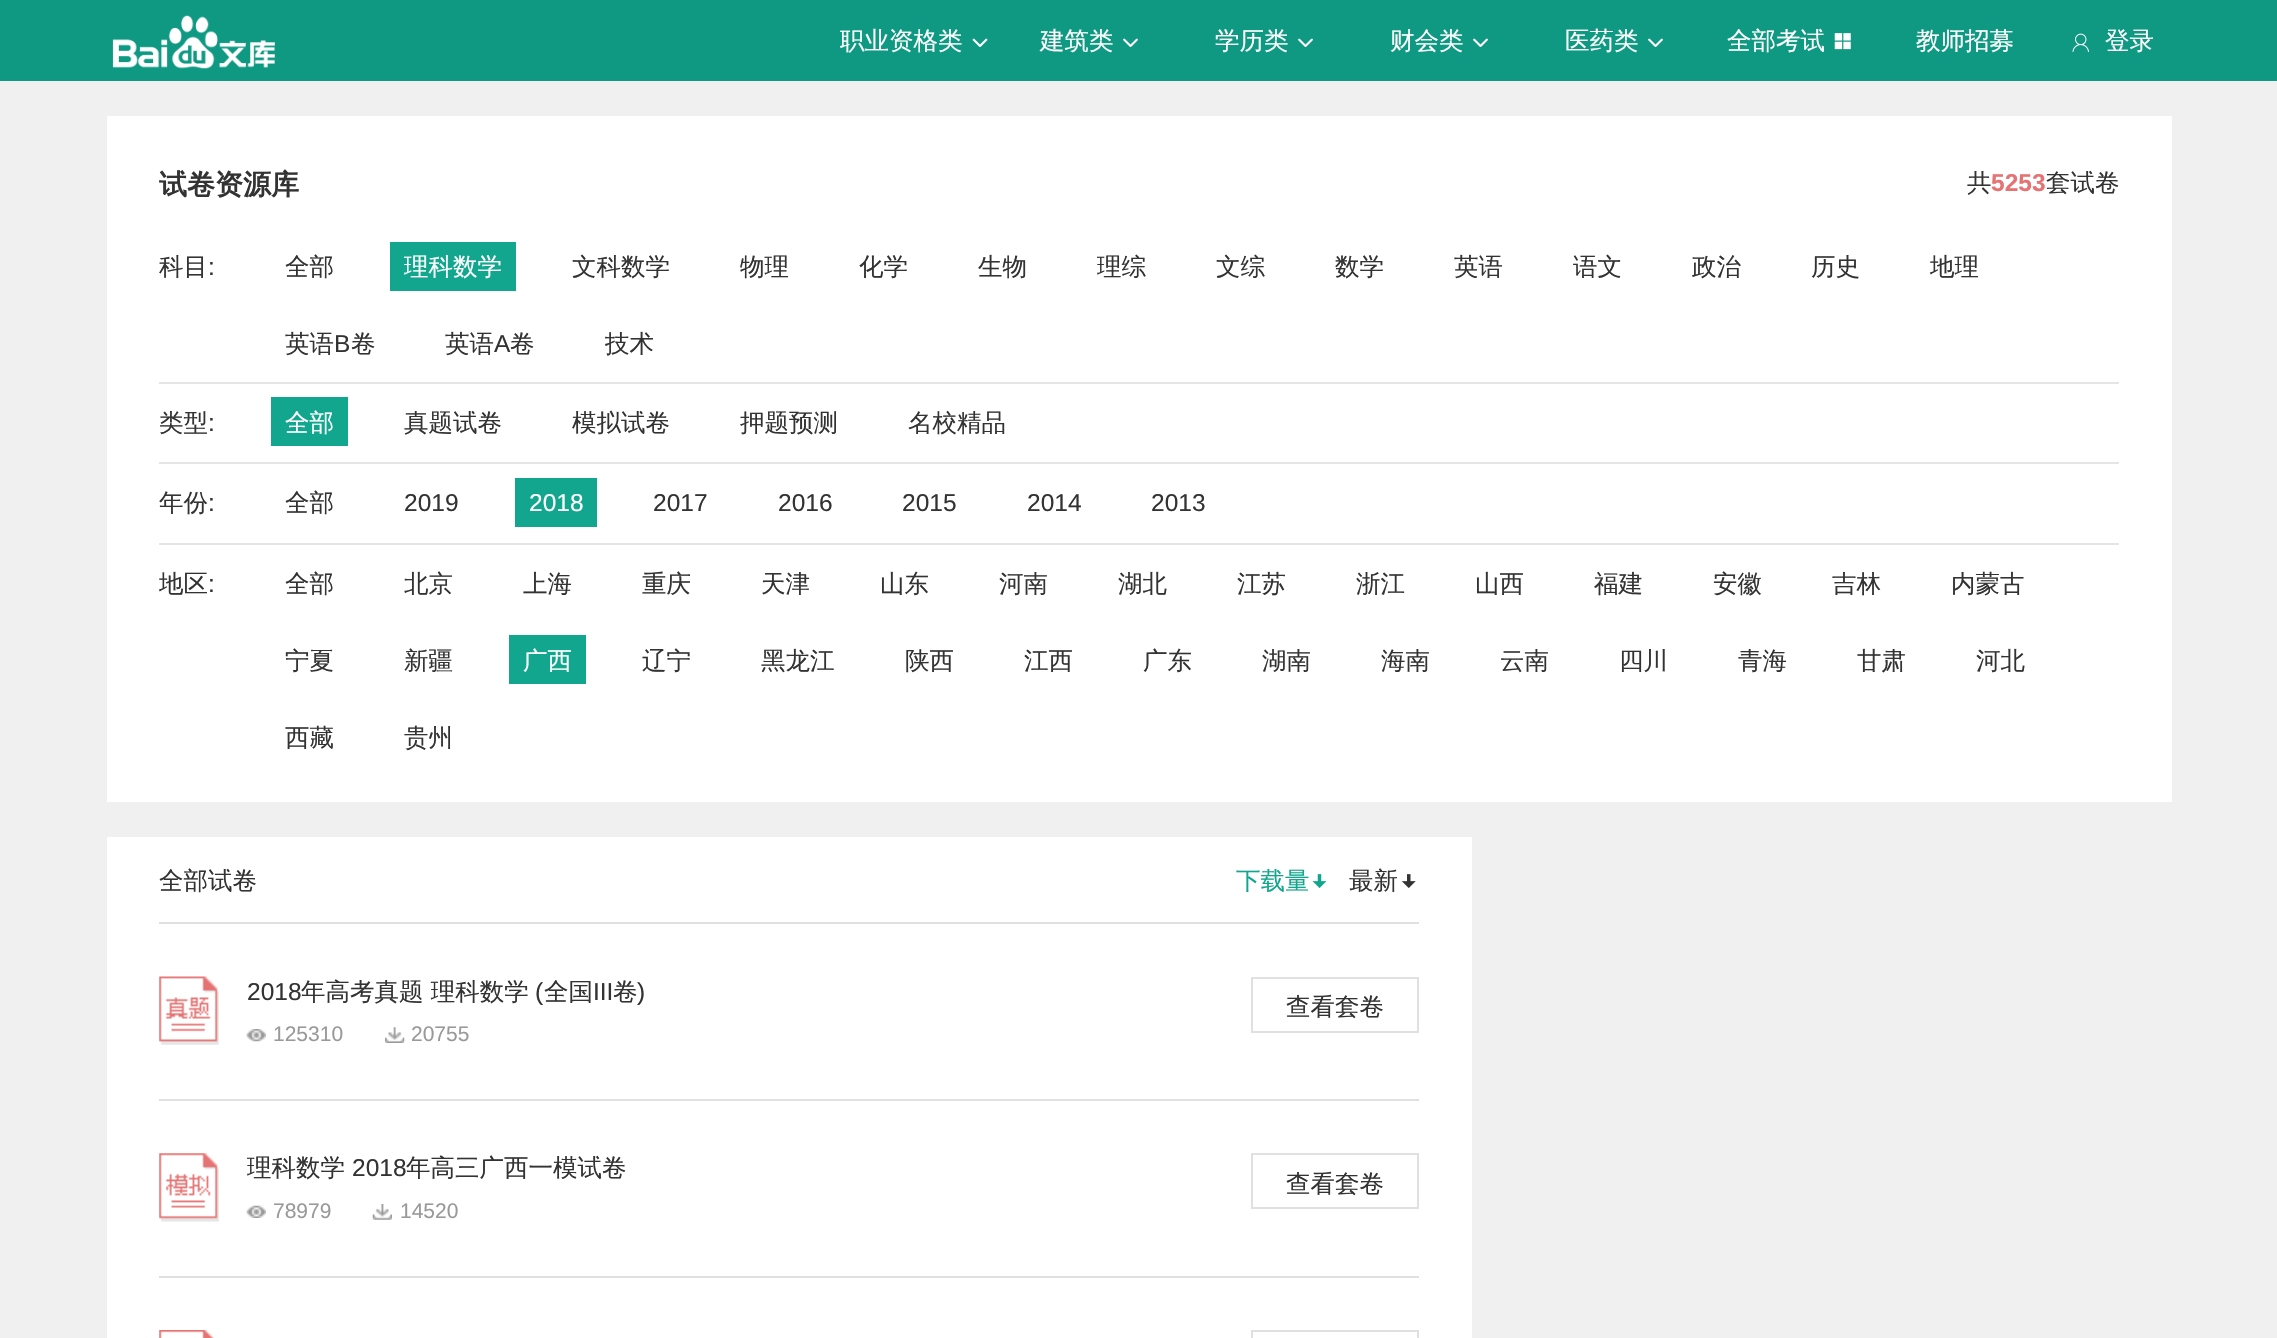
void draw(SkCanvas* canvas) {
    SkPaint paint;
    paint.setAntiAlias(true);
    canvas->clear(0xFFF0F0F0);
    paint.setColor(0xFF0F9982);
    canvas->drawRect(SkRect::MakeXYWH(0, 0, 2277, 81), paint);
    canvas->drawImageRect(SkImages::DeferredFromEncodedData(SkData::MakeFromFileName("img1.png")), SkRect::MakeXYWH(112, 15, 163, 54), SkSamplingOptions());
    SkFont font1(fontMgr->matchFamilyStyle("WenQuanYi Zen Hei", SkFontStyle(500, SkFontStyle::kNormal_Width, SkFontStyle::kUpright_Slant)), 24.5f);
    font1.setSubpixel(true);
    paint.setColor(0xFFFFFFFF);
    canvas->drawString("职业资格类", 840, 49, font1, paint);
    canvas->drawImageRect(SkImages::DeferredFromEncodedData(SkData::MakeFromFileName("img2.png")), SkRect::MakeXYWH(972, 38, 16, 9), SkSamplingOptions());
    canvas->drawString("建筑类", 1040, 49, font1, paint);
    canvas->drawImageRect(SkImages::DeferredFromEncodedData(SkData::MakeFromFileName("img3.png")), SkRect::MakeXYWH(1123, 38, 15, 9), SkSamplingOptions());
    canvas->drawString("学历类", 1215, 49, font1, paint);
    canvas->drawImageRect(SkImages::DeferredFromEncodedData(SkData::MakeFromFileName("img3.png")), SkRect::MakeXYWH(1298, 38, 15, 9), SkSamplingOptions());
    canvas->drawString("财会类", 1390, 49, font1, paint);
    canvas->drawImageRect(SkImages::DeferredFromEncodedData(SkData::MakeFromFileName("img3.png")), SkRect::MakeXYWH(1473, 38, 15, 9), SkSamplingOptions());
    canvas->drawString("医药类", 1565, 49, font1, paint);
    canvas->drawImageRect(SkImages::DeferredFromEncodedData(SkData::MakeFromFileName("img3.png")), SkRect::MakeXYWH(1648, 38, 15, 9), SkSamplingOptions());
    canvas->drawString("全部考试", 1727, 49, font1, paint);
    canvas->drawImageRect(SkImages::DeferredFromEncodedData(SkData::MakeFromFileName("img4.png")), SkRect::MakeXYWH(1834, 33, 17, 17), SkSamplingOptions());
    canvas->drawString("教师招募", 1916, 49, font1, paint);
    canvas->drawImageRect(SkImages::DeferredFromEncodedData(SkData::MakeFromFileName("img5.png")), SkRect::MakeXYWH(2072, 33, 17, 19), SkSamplingOptions());
    canvas->drawString("登录", 2105, 49, font1, paint);
    canvas->drawRect(SkRect::MakeXYWH(107, 116, 2065, 686), paint);
    SkFont font2(fontMgr->matchFamilyStyle("WenQuanYi Zen Hei", SkFontStyle::Bold()), 28);
    font2.setSubpixel(true);
    paint.setColor(0xFF333333);
    canvas->drawString("试卷资源库", 159, 194, font2, paint);
    canvas->drawString("共", 1967, 191, font1, paint);
    SkFont font3(fontMgr->matchFamilyStyle("Liberation Sans", SkFontStyle::Bold()), 24.5f);
    font3.setSubpixel(true);
    paint.setColor(0xFFE57373);
    canvas->drawString("5253", 1991, 191, font3, paint);
    paint.setColor(0xFF333333);
    canvas->drawString("套试卷", 2046, 191, font1, paint);
    paint.setColor(0xFFE5E5E5);
    canvas->drawRect(SkRect::MakeXYWH(159, 382, 1960, 2), paint);
    paint.setColor(0xFF333333);
    canvas->drawString("科目", 159, 275, font1, paint);
    SkFont font4(fontMgr->matchFamilyStyle("Liberation Sans", SkFontStyle::Normal()), 24.5f);
    font4.setSubpixel(true);
    canvas->drawString(":", 208, 275, font4, paint);
    canvas->drawString("全部", 285, 275, font1, paint);
    paint.setColor(0xFF11A68D);
    canvas->drawRect(SkRect::MakeXYWH(390, 242, 126, 49), paint);
    paint.setColor(0xFFFFFFFF);
    canvas->drawString("理科数学", 404, 275, font1, paint);
    paint.setColor(0xFF333333);
    canvas->drawString("文科数学", 572, 275, font1, paint);
    canvas->drawString("物理", 740, 275, font1, paint);
    canvas->drawString("化学", 859, 275, font1, paint);
    canvas->drawString("生物", 978, 275, font1, paint);
    canvas->drawString("理综", 1097, 275, font1, paint);
    canvas->drawString("文综", 1216, 275, font1, paint);
    canvas->drawString("数学", 1335, 275, font1, paint);
    canvas->drawString("英语", 1454, 275, font1, paint);
    canvas->drawString("语文", 1573, 275, font1, paint);
    canvas->drawString("政治", 1692, 275, font1, paint);
    canvas->drawString("历史", 1811, 275, font1, paint);
    canvas->drawString("地理", 1930, 275, font1, paint);
    canvas->drawString("英语", 285, 352, font1, paint);
    canvas->drawString("B", 334, 352, font4, paint);
    canvas->drawString("卷", 351, 352, font1, paint);
    canvas->drawString("英语", 445, 352, font1, paint);
    canvas->drawString("A", 494, 352, font4, paint);
    canvas->drawString("卷", 510, 352, font1, paint);
    canvas->drawString("技术", 605, 352, font1, paint);
    paint.setColor(0xFFE5E5E5);
    canvas->drawRect(SkRect::MakeXYWH(159, 462, 1960, 2), paint);
    paint.setColor(0xFF333333);
    canvas->drawString("类型", 159, 431, font1, paint);
    canvas->drawString(":", 208, 431, font4, paint);
    paint.setColor(0xFF11A68D);
    canvas->drawRect(SkRect::MakeXYWH(271, 397, 77, 49), paint);
    paint.setColor(0xFFFFFFFF);
    canvas->drawString("全部", 285, 431, font1, paint);
    paint.setColor(0xFF333333);
    canvas->drawString("真题试卷", 404, 431, font1, paint);
    canvas->drawString("模拟试卷", 572, 431, font1, paint);
    canvas->drawString("押题预测", 740, 431, font1, paint);
    canvas->drawString("名校精品", 908, 431, font1, paint);
    paint.setColor(0xFFE5E5E5);
    canvas->drawRect(SkRect::MakeXYWH(159, 543, 1960, 2), paint);
    paint.setColor(0xFF333333);
    canvas->drawString("年份", 159, 511, font1, paint);
    canvas->drawString(":", 208, 511, font4, paint);
    canvas->drawString("全部", 285, 511, font1, paint);
    canvas->drawString("2019", 404, 511, font4, paint);
    paint.setColor(0xFF11A68D);
    canvas->drawRect(SkRect::MakeXYWH(515, 478, 82, 49), paint);
    paint.setColor(0xFFFFFFFF);
    canvas->drawString("2018", 529, 511, font4, paint);
    paint.setColor(0xFF333333);
    canvas->drawString("2017", 653, 511, font4, paint);
    canvas->drawString("2016", 778, 511, font4, paint);
    canvas->drawString("2015", 902, 511, font4, paint);
    canvas->drawString("2014", 1027, 511, font4, paint);
    canvas->drawString("2013", 1151, 511, font4, paint);
    canvas->drawString("地区", 159, 592, font1, paint);
    canvas->drawString(":", 208, 592, font4, paint);
    canvas->drawString("全部", 285, 592, font1, paint);
    canvas->drawString("北京", 404, 592, font1, paint);
    canvas->drawString("上海", 523, 592, font1, paint);
    canvas->drawString("重庆", 642, 592, font1, paint);
    canvas->drawString("天津", 761, 592, font1, paint);
    canvas->drawString("山东", 880, 592, font1, paint);
    canvas->drawString("河南", 999, 592, font1, paint);
    canvas->drawString("湖北", 1118, 592, font1, paint);
    canvas->drawString("江苏", 1237, 592, font1, paint);
    canvas->drawString("浙江", 1356, 592, font1, paint);
    canvas->drawString("山西", 1475, 592, font1, paint);
    canvas->drawString("福建", 1594, 592, font1, paint);
    canvas->drawString("安徽", 1713, 592, font1, paint);
    canvas->drawString("吉林", 1832, 592, font1, paint);
    canvas->drawString("内蒙古", 1951, 592, font1, paint);
    canvas->drawString("宁夏", 285, 669, font1, paint);
    canvas->drawString("新疆", 404, 669, font1, paint);
    paint.setColor(0xFF11A68D);
    canvas->drawRect(SkRect::MakeXYWH(509, 635, 77, 49), paint);
    paint.setColor(0xFFFFFFFF);
    canvas->drawString("广西", 523, 669, font1, paint);
    paint.setColor(0xFF333333);
    canvas->drawString("辽宁", 642, 669, font1, paint);
    canvas->drawString("黑龙江", 761, 669, font1, paint);
    canvas->drawString("陕西", 905, 669, font1, paint);
    canvas->drawString("江西", 1024, 669, font1, paint);
    canvas->drawString("广东", 1143, 669, font1, paint);
    canvas->drawString("湖南", 1262, 669, font1, paint);
    canvas->drawString("海南", 1381, 669, font1, paint);
    canvas->drawString("云南", 1500, 669, font1, paint);
    canvas->drawString("四川", 1619, 669, font1, paint);
    canvas->drawString("青海", 1738, 669, font1, paint);
    canvas->drawString("甘肃", 1857, 669, font1, paint);
    canvas->drawString("河北", 1976, 669, font1, paint);
    canvas->drawString("西藏", 285, 746, font1, paint);
    canvas->drawString("贵州", 404, 746, font1, paint);
    paint.setColor(0xFFFFFFFF);
    canvas->drawRect(SkRect::MakeXYWH(107, 837, 1365, 501), paint);
    paint.setColor(0xFFE0E0E0);
    canvas->drawRect(SkRect::MakeXYWH(159, 922, 1260, 2), paint);
    paint.setColor(0xFF333333);
    canvas->drawString("全部试卷", 159, 889, font1, paint);
    paint.setColor(0xFF11A68D);
    canvas->drawString("下载量", 1236, 889, font1, paint);
    canvas->drawImageRect(SkImages::DeferredFromEncodedData(SkData::MakeFromFileName("img6.png")), SkRect::MakeXYWH(1312, 874, 15, 14), SkSamplingOptions());
    paint.setColor(0xFF333333);
    canvas->drawString("最新", 1349, 889, font1, paint);
    canvas->drawImageRect(SkImages::DeferredFromEncodedData(SkData::MakeFromFileName("img7.png")), SkRect::MakeXYWH(1401, 874, 15, 14), SkSamplingOptions());
    canvas->drawImageRect(SkImages::DeferredFromEncodedData(SkData::MakeFromFileName("img8.png")), SkRect::MakeXYWH(159, 976, 60, 69), SkSamplingOptions());
    canvas->drawString("2018", 247, 1000, font4, paint);
    canvas->drawString("年高考真题 理科数学", 301, 1000, font1, paint);
    canvas->drawString("(", 535, 1000, font4, paint);
    canvas->drawString("全国", 544, 1000, font1, paint);
    canvas->drawString("III", 593, 1000, font4, paint);
    canvas->drawString("卷", 613, 1000, font1, paint);
    canvas->drawString(")", 637, 1000, font4, paint);
    canvas->drawImageRect(SkImages::DeferredFromEncodedData(SkData::MakeFromFileName("img9.png")), SkRect::MakeXYWH(246, 1029, 20, 13), SkSamplingOptions());
    SkFont font5(fontMgr->matchFamilyStyle("Liberation Sans", SkFontStyle::Normal()), 21);
    font5.setSubpixel(true);
    paint.setColor(0xFF999999);
    canvas->drawString("125310", 273, 1041, font5, paint);
    canvas->drawImageRect(SkImages::DeferredFromEncodedData(SkData::MakeFromFileName("img10.png")), SkRect::MakeXYWH(385, 1027, 20, 16), SkSamplingOptions());
    canvas->drawString("20755", 411, 1041, font5, paint);
    paint.setStyle(SkPaint::kStroke_Style);
    paint.setStrokeWidth(2);
    paint.setColor(0xFFE0E0E0);
    canvas->drawRect(SkRect::MakeXYWH(1252, 978, 166, 54), paint);
    paint.setStyle(SkPaint::kFill_Style);
    paint.setColor(0xFF333333);
    canvas->drawString("查看套卷", 1286, 1015, font1, paint);
    paint.setColor(0xFFE0E0E0);
    canvas->drawRect(SkRect::MakeXYWH(159, 1099, 1260, 2), paint);
    canvas->drawImageRect(SkImages::DeferredFromEncodedData(SkData::MakeFromFileName("img11.png")), SkRect::MakeXYWH(159, 1153, 60, 69), SkSamplingOptions());
    paint.setColor(0xFF333333);
    canvas->drawString("理科数学", 247, 1176, font1, paint);
    canvas->drawString("2018", 352, 1176, font4, paint);
    canvas->drawString("年高三广西一模试卷", 406, 1176, font1, paint);
    canvas->drawImageRect(SkImages::DeferredFromEncodedData(SkData::MakeFromFileName("img12.png")), SkRect::MakeXYWH(246, 1205, 20, 13), SkSamplingOptions());
    paint.setColor(0xFF999999);
    canvas->drawString("78979", 273, 1218, font5, paint);
    canvas->drawImageRect(SkImages::DeferredFromEncodedData(SkData::MakeFromFileName("img13.png")), SkRect::MakeXYWH(372, 1204, 20, 16), SkSamplingOptions());
    canvas->drawString("14520", 400, 1218, font5, paint);
    paint.setStyle(SkPaint::kStroke_Style);
    paint.setColor(0xFFE0E0E0);
    canvas->drawRect(SkRect::MakeXYWH(1252, 1154, 166, 54), paint);
    paint.setStyle(SkPaint::kFill_Style);
    paint.setColor(0xFF333333);
    canvas->drawString("查看套卷", 1286, 1192, font1, paint);
    paint.setColor(0xFFE0E0E0);
    canvas->drawRect(SkRect::MakeXYWH(159, 1276, 1260, 2), paint);
    canvas->drawImageRect(SkImages::DeferredFromEncodedData(SkData::MakeFromFileName("img14.png")), SkRect::MakeXYWH(159, 1330, 55, 8), SkSamplingOptions());
    paint.setStyle(SkPaint::kStroke_Style);
    canvas->drawRect(SkRect::MakeXYWH(1252, 1331, 166, 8), paint);
}
